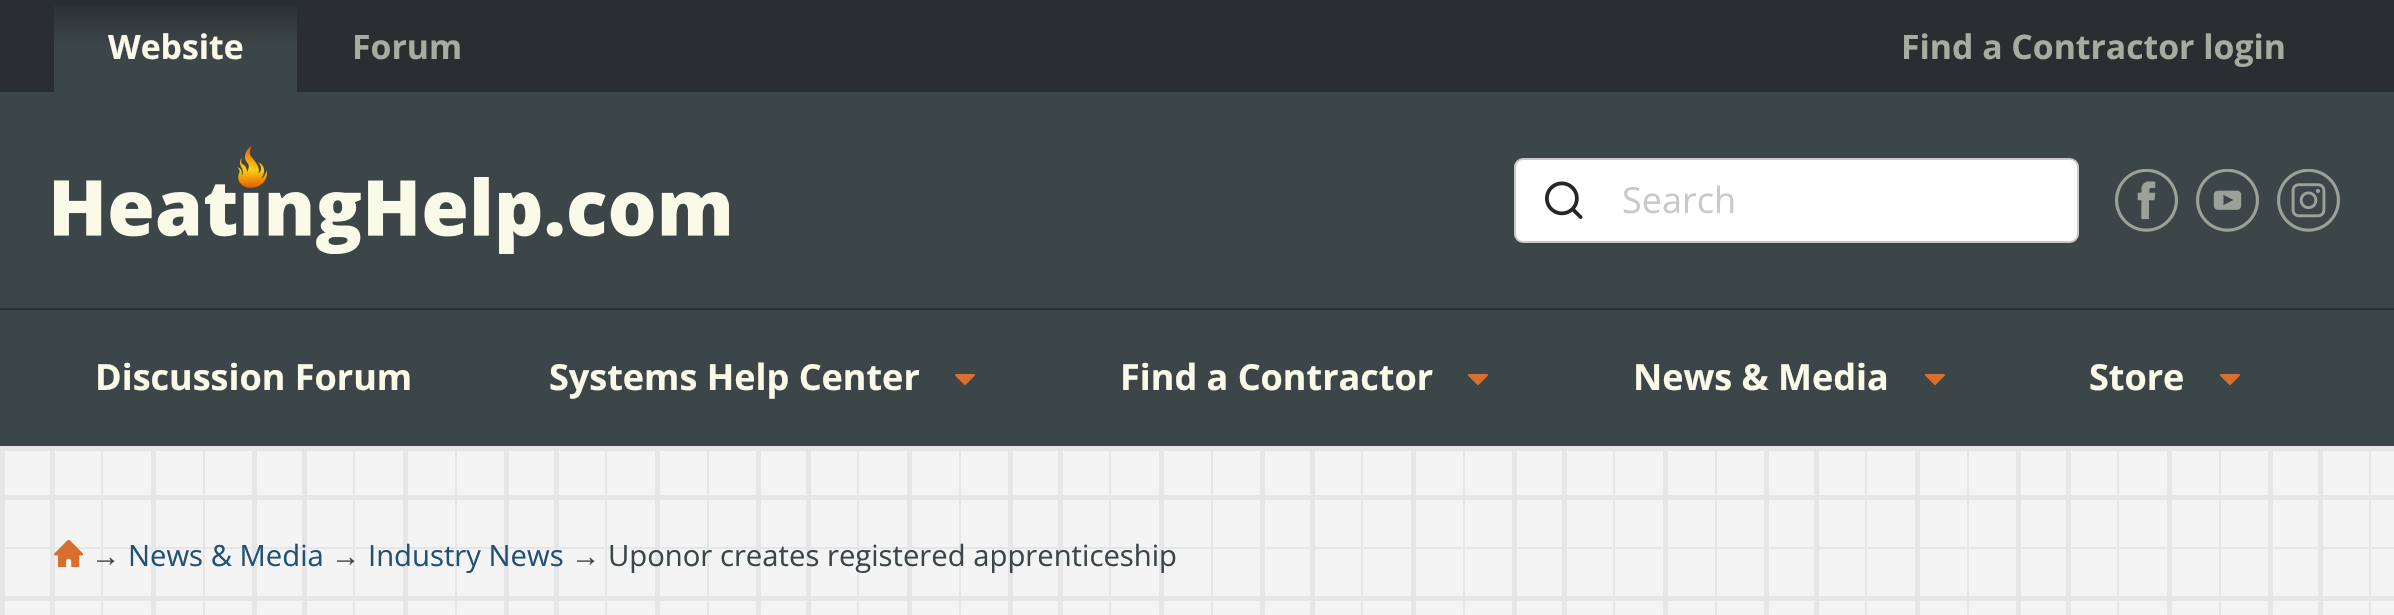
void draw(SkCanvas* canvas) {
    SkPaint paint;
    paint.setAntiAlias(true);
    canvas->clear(0xFF292F31);
    {
        const SkColor colors[] = {0xFF292F31, 0xFF3C4548};
        const float stops[] = {0, 0.5f};
        const SkPoint ends[] = {{176, 0}, {176, 92}};
        paint.setShader(SkGradientShader::MakeLinear(ends, colors, stops, 2, SkTileMode::kClamp));
        paint.setAlpha(255);
    }
    canvas->drawRect(SkRect::MakeXYWH(54, 5, 243, 87), paint);
    SkFont font1(fontMgr->matchFamilyStyle("Open Sans", SkFontStyle::Bold()), 33.75f);
    font1.setSubpixel(true);
    paint.setShader(nullptr);
    paint.setColor(0xFFFAFAE9);
    canvas->drawString("Website", 108, 59, font1, paint);
    paint.setColor(0xFFA8ABA1);
    canvas->drawString("Forum", 352, 59, font1, paint);
    canvas->drawString("Find a Contractor login", 1901, 59, font1, paint);
    paint.setColor(0xFF3C4548);
    canvas->drawRect(SkRect::MakeXYWH(0, 92, 2394, 216), paint);
    canvas->drawImageRect(SkImages::DeferredFromEncodedData(SkData::MakeFromFileName("img1.png")), SkRect::MakeXYWH(54, 146, 675, 108), SkSamplingOptions());
    paint.setColor(0xFFFFFFFF);
    canvas->drawRoundRect(SkRect::MakeXYWH(1515, 159, 563, 83), 8, 8, paint);
    paint.setStyle(SkPaint::kStroke_Style);
    paint.setStrokeWidth(2);
    paint.setColor(0xFFC9C9C9);
    canvas->drawRoundRect(SkRect::MakeXYWH(1515, 159, 563, 83), 8, 8, paint);
    canvas->drawImageRect(SkImages::DeferredFromEncodedData(SkData::MakeFromFileName("img2.png")), SkRect::MakeXYWH(1545, 181, 38, 38), SkSamplingOptions());
    SkFont font2(fontMgr->matchFamilyStyle("Open Sans", SkFontStyle::Normal()), 36);
    font2.setSubpixel(true);
    paint.setStyle(SkPaint::kFill_Style);
    canvas->drawString("Search", 1622, 213, font2, paint);
    canvas->drawImageRect(SkImages::DeferredFromEncodedData(SkData::MakeFromFileName("img3.png")), SkRect::MakeXYWH(2115, 169, 63, 63), SkSamplingOptions());
    canvas->drawImageRect(SkImages::DeferredFromEncodedData(SkData::MakeFromFileName("img4.png")), SkRect::MakeXYWH(2196, 169, 63, 63), SkSamplingOptions());
    canvas->drawImageRect(SkImages::DeferredFromEncodedData(SkData::MakeFromFileName("img5.png")), SkRect::MakeXYWH(2277, 169, 63, 63), SkSamplingOptions());
    paint.setColor(0xFF3C4548);
    canvas->drawRect(SkRect::MakeXYWH(0, 310, 2394, 136), paint);
    SkFont font3(fontMgr->matchFamilyStyle("Open Sans", SkFontStyle::Bold()), 36);
    font3.setSubpixel(true);
    paint.setColor(0xFFFAFAE9);
    canvas->drawString("Discussion Forum", 95, 390, font3, paint);
    canvas->drawString("Systems Help Center", 549, 390, font3, paint);
    paint.setColor(0xFFD96F2C);
    canvas->drawPath(SkPathBuilder().moveTo(956, 375).lineTo(965, 384).lineTo(974, 375).lineTo(956, 375).detach(), paint);
    paint.setStyle(SkPaint::kStroke_Style);
    paint.setStrokeWidth(2.2f);
    paint.setStrokeCap(SkPaint::kRound_Cap);
    paint.setStrokeJoin(SkPaint::kRound_Join);
    canvas->drawPath(SkPathBuilder().moveTo(956, 375).lineTo(965, 384).lineTo(974, 375).lineTo(956, 375).detach(), paint);
    paint.setStyle(SkPaint::kFill_Style);
    paint.setColor(0xFFFAFAE9);
    canvas->drawString("Find a Contractor", 1120, 390, font3, paint);
    paint.setColor(0xFFD96F2C);
    canvas->drawPath(SkPathBuilder().moveTo(1469, 375).lineTo(1478, 384).lineTo(1487, 375).lineTo(1469, 375).detach(), paint);
    paint.setStyle(SkPaint::kStroke_Style);
    canvas->drawPath(SkPathBuilder().moveTo(1469, 375).lineTo(1478, 384).lineTo(1487, 375).lineTo(1469, 375).detach(), paint);
    paint.setStyle(SkPaint::kFill_Style);
    paint.setColor(0xFFFAFAE9);
    canvas->drawString("News & Media", 1633, 390, font3, paint);
    paint.setColor(0xFFD96F2C);
    canvas->drawPath(SkPathBuilder().moveTo(1926, 375).lineTo(1935, 384).lineTo(1944, 375).lineTo(1926, 375).detach(), paint);
    paint.setStyle(SkPaint::kStroke_Style);
    canvas->drawPath(SkPathBuilder().moveTo(1926, 375).lineTo(1935, 384).lineTo(1944, 375).lineTo(1926, 375).detach(), paint);
    paint.setStyle(SkPaint::kFill_Style);
    paint.setColor(0xFFFAFAE9);
    canvas->drawString("Store", 2089, 390, font3, paint);
    paint.setColor(0xFFD96F2C);
    canvas->drawPath(SkPathBuilder().moveTo(2221, 375).lineTo(2230, 384).lineTo(2239, 375).lineTo(2221, 375).detach(), paint);
    paint.setStyle(SkPaint::kStroke_Style);
    canvas->drawPath(SkPathBuilder().moveTo(2221, 375).lineTo(2230, 384).lineTo(2239, 375).lineTo(2221, 375).detach(), paint);
    paint.setStyle(SkPaint::kFill_Style);
    paint.setColor(0xFFF4F4F4);
    canvas->drawRect(SkRect::MakeXYWH(5, 451, 2389, 164), paint);
    paint.setColor(0xFFE6E6E6);
    canvas->drawRect(SkRect::MakeXYWH(0, 446, 2394, 5), paint);
    canvas->drawRect(SkRect::MakeXYWH(0, 495, 2394, 5), paint);
    canvas->drawRect(SkRect::MakeXYWH(0, 547, 2394, 2), paint);
    canvas->drawRect(SkRect::MakeXYWH(0, 596, 2394, 5), paint);
    canvas->drawImageRect(SkImages::DeferredFromEncodedData(SkData::MakeFromFileName("img6.png")), SkRect::MakeXYWH(0, 451, 2371, 164), SkSamplingOptions());
    canvas->drawImageRect(SkImages::DeferredFromEncodedData(SkData::MakeFromFileName("img7.png")), SkRect::MakeXYWH(54, 540, 29, 27), SkSamplingOptions());
    SkFont font4(fontMgr->matchFamilyStyle("Liberation Sans", SkFontStyle::Normal()), 29.25f);
    font4.setSubpixel(true);
    paint.setColor(0xFF3C4548);
    canvas->drawString("→", 91, 566, font4, paint);
    SkFont font5(fontMgr->matchFamilyStyle("Open Sans", SkFontStyle::Normal()), 29.25f);
    font5.setSubpixel(true);
    paint.setColor(0xFF215175);
    canvas->drawString("News & Media", 128, 566, font5, paint);
    paint.setColor(0xFF3C4548);
    canvas->drawString("→", 331, 566, font4, paint);
    paint.setColor(0xFF215175);
    canvas->drawString("Industry News", 368, 566, font5, paint);
    paint.setColor(0xFF3C4548);
    canvas->drawString("→", 571, 566, font4, paint);
    canvas->drawString("Uponor creates registered apprenticeship", 608, 566, font5, paint);
}
